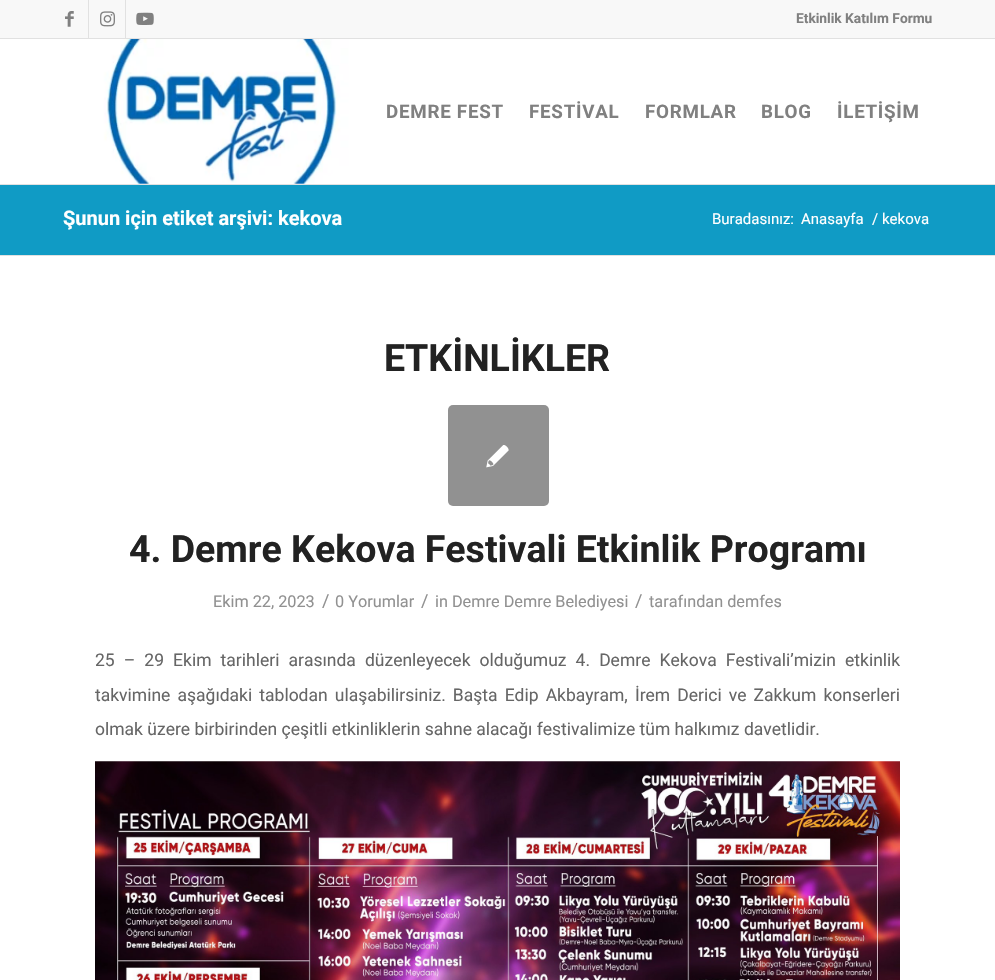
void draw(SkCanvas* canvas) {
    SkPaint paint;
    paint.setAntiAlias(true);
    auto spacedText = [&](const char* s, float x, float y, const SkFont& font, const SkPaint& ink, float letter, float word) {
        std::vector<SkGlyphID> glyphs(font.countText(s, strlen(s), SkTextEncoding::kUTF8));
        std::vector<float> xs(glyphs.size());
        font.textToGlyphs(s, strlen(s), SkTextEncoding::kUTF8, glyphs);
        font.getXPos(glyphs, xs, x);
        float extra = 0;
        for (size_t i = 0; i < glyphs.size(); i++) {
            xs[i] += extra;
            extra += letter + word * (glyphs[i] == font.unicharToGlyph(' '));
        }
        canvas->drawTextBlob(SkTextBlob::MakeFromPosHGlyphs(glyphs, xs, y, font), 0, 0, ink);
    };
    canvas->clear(0xFFFFFFFF);
    paint.setColor(0xFFF8F8F8);
    canvas->drawRect(SkRect::MakeXYWH(0, 0, 995, 38), paint);
    paint.setColor(0xFFE1E1E1);
    canvas->drawRect(SkRect::MakeXYWH(0, 38, 995, 1), paint);
    canvas->drawRect(SkRect::MakeXYWH(88, 0, 1, 38), paint);
    canvas->drawImageRect(SkImages::DeferredFromEncodedData(SkData::MakeFromFileName("img1.png")), SkRect::MakeXYWH(65, 11, 9, 16), SkSamplingOptions());
    canvas->drawRect(SkRect::MakeXYWH(125, 0, 1, 38), paint);
    canvas->drawImageRect(SkImages::DeferredFromEncodedData(SkData::MakeFromFileName("img2.png")), SkRect::MakeXYWH(100, 11, 15, 16), SkSamplingOptions());
    canvas->drawImageRect(SkImages::DeferredFromEncodedData(SkData::MakeFromFileName("img3.png")), SkRect::MakeXYWH(136, 12, 18, 13), SkSamplingOptions());
    SkFont font1(fontMgr->matchFamilyStyle("Roboto", SkFontStyle::Bold()), 13.75f);
    font1.setSubpixel(true);
    paint.setColor(0xFF808080);
    canvas->drawString("Etkinlik Katılım Formu", 796, 23, font1, paint);
    paint.setColor(0xFFE1E1E1);
    canvas->drawRect(SkRect::MakeXYWH(0, 184, 995, 1), paint);
    canvas->drawImageRect(SkImages::DeferredFromEncodedData(SkData::MakeFromFileName("img4.png")), SkRect::MakeXYWH(63, 39, 314, 145), SkSamplingOptions());
    SkFont font2(fontMgr->matchFamilyStyle("Roboto", SkFontStyle::Bold()), 18.75f);
    font2.setSubpixel(true);
    paint.setColor(0xFF808080);
    spacedText("DEMRE FEST", 386, 118, font2, paint, 0.75f, 0);
    spacedText("FESTİVAL", 529, 118, font2, paint, 0.75f, 0);
    spacedText("FORMLAR", 645, 118, font2, paint, 0.75f, 0);
    spacedText("BLOG", 761, 118, font2, paint, 0.75f, 0);
    spacedText("İLETİŞİM", 837, 118, font2, paint, 0.75f, 0);
    paint.setColor(0xFF109BC5);
    canvas->drawRect(SkRect::MakeXYWH(0, 185, 995, 70), paint);
    SkFont font3(fontMgr->matchFamilyStyle("Roboto", SkFontStyle::Bold()), 20);
    font3.setSubpixel(true);
    paint.setColor(0xFFFFFFFF);
    canvas->drawString("Şunun için etiket arşivi: kekova", 63, 225, font3, paint);
    SkFont font4(fontMgr->matchFamilyStyle("Roboto", SkFontStyle::Normal()), 15);
    font4.setSubpixel(true);
    canvas->drawString("Buradasınız:", 712, 224, font4, paint);
    canvas->drawString("Anasayfa", 801, 224, font4, paint);
    canvas->drawString("/", 872, 224, font4, paint);
    canvas->drawString("kekova", 882, 224, font4, paint);
    paint.setColor(0xFFE1E1E1);
    canvas->drawRect(SkRect::MakeXYWH(0, 255, 995, 1), paint);
    SkFont font5(fontMgr->matchFamilyStyle("Roboto", SkFontStyle::Bold()), 37.5f);
    font5.setSubpixel(true);
    paint.setColor(0xFF222222);
    canvas->drawString("ETKİNLİKLER", 384, 371, font5, paint);
    paint.setColor(0xFF919191);
    canvas->drawRoundRect(SkRect::MakeXYWH(448, 405, 101, 101), 5, 5, paint);
    canvas->drawImageRect(SkImages::DeferredFromEncodedData(SkData::MakeFromFileName("img5.png")), SkRect::MakeXYWH(486, 445, 23, 23), SkSamplingOptions());
    paint.setColor(0xFF222222);
    canvas->drawString("4. Demre Kekova Festivali Etkinlik Programı", 129, 562, font5, paint);
    SkFont font6(fontMgr->matchFamilyStyle("Roboto", SkFontStyle::Normal()), 16.25f);
    font6.setSubpixel(true);
    paint.setColor(0xFF919191);
    canvas->drawString("Ekim 22, 2023", 213, 607, font6, paint);
    SkFont font7(fontMgr->matchFamilyStyle("Roboto", SkFontStyle::Normal()), 18);
    font7.setSubpixel(true);
    canvas->drawString("/", 322, 607, font7, paint);
    canvas->drawString("0 Yorumlar", 335, 607, font6, paint);
    canvas->drawString("/", 421, 607, font7, paint);
    canvas->drawString("in Demre Demre Belediyesi", 435, 607, font6, paint);
    canvas->drawString("/", 635, 607, font7, paint);
    canvas->drawString("tarafından demfes", 649, 607, font6, paint);
    SkFont font8(fontMgr->matchFamilyStyle("Roboto", SkFontStyle::Normal()), 17.5f);
    font8.setSubpixel(true);
    paint.setColor(0xFF666666);
    spacedText("25 – 29 Ekim tarihleri arasında düzenleyecek olduğumuz 4. Demre Kekova Festivali’mizin etkinlik", 95, 666, font8, paint, 0, 4.75f);
    spacedText("takvimine aşağıdaki tablodan ulaşabilirsiniz. Başta Edip Akbayram, İrem Derici ve Zakkum konserleri", 95, 701, font8, paint, 0, 2.75f);
    canvas->drawString("olmak üzere birbirinden çeşitli etkinliklerin sahne alacağı festivalimize tüm halkımız davetlidir.", 95, 735, font8, paint);
    canvas->drawImageRect(SkImages::DeferredFromEncodedData(SkData::MakeFromFileName("img6.png")), SkRect::MakeXYWH(95, 761, 805, 219), SkSamplingOptions());
}
